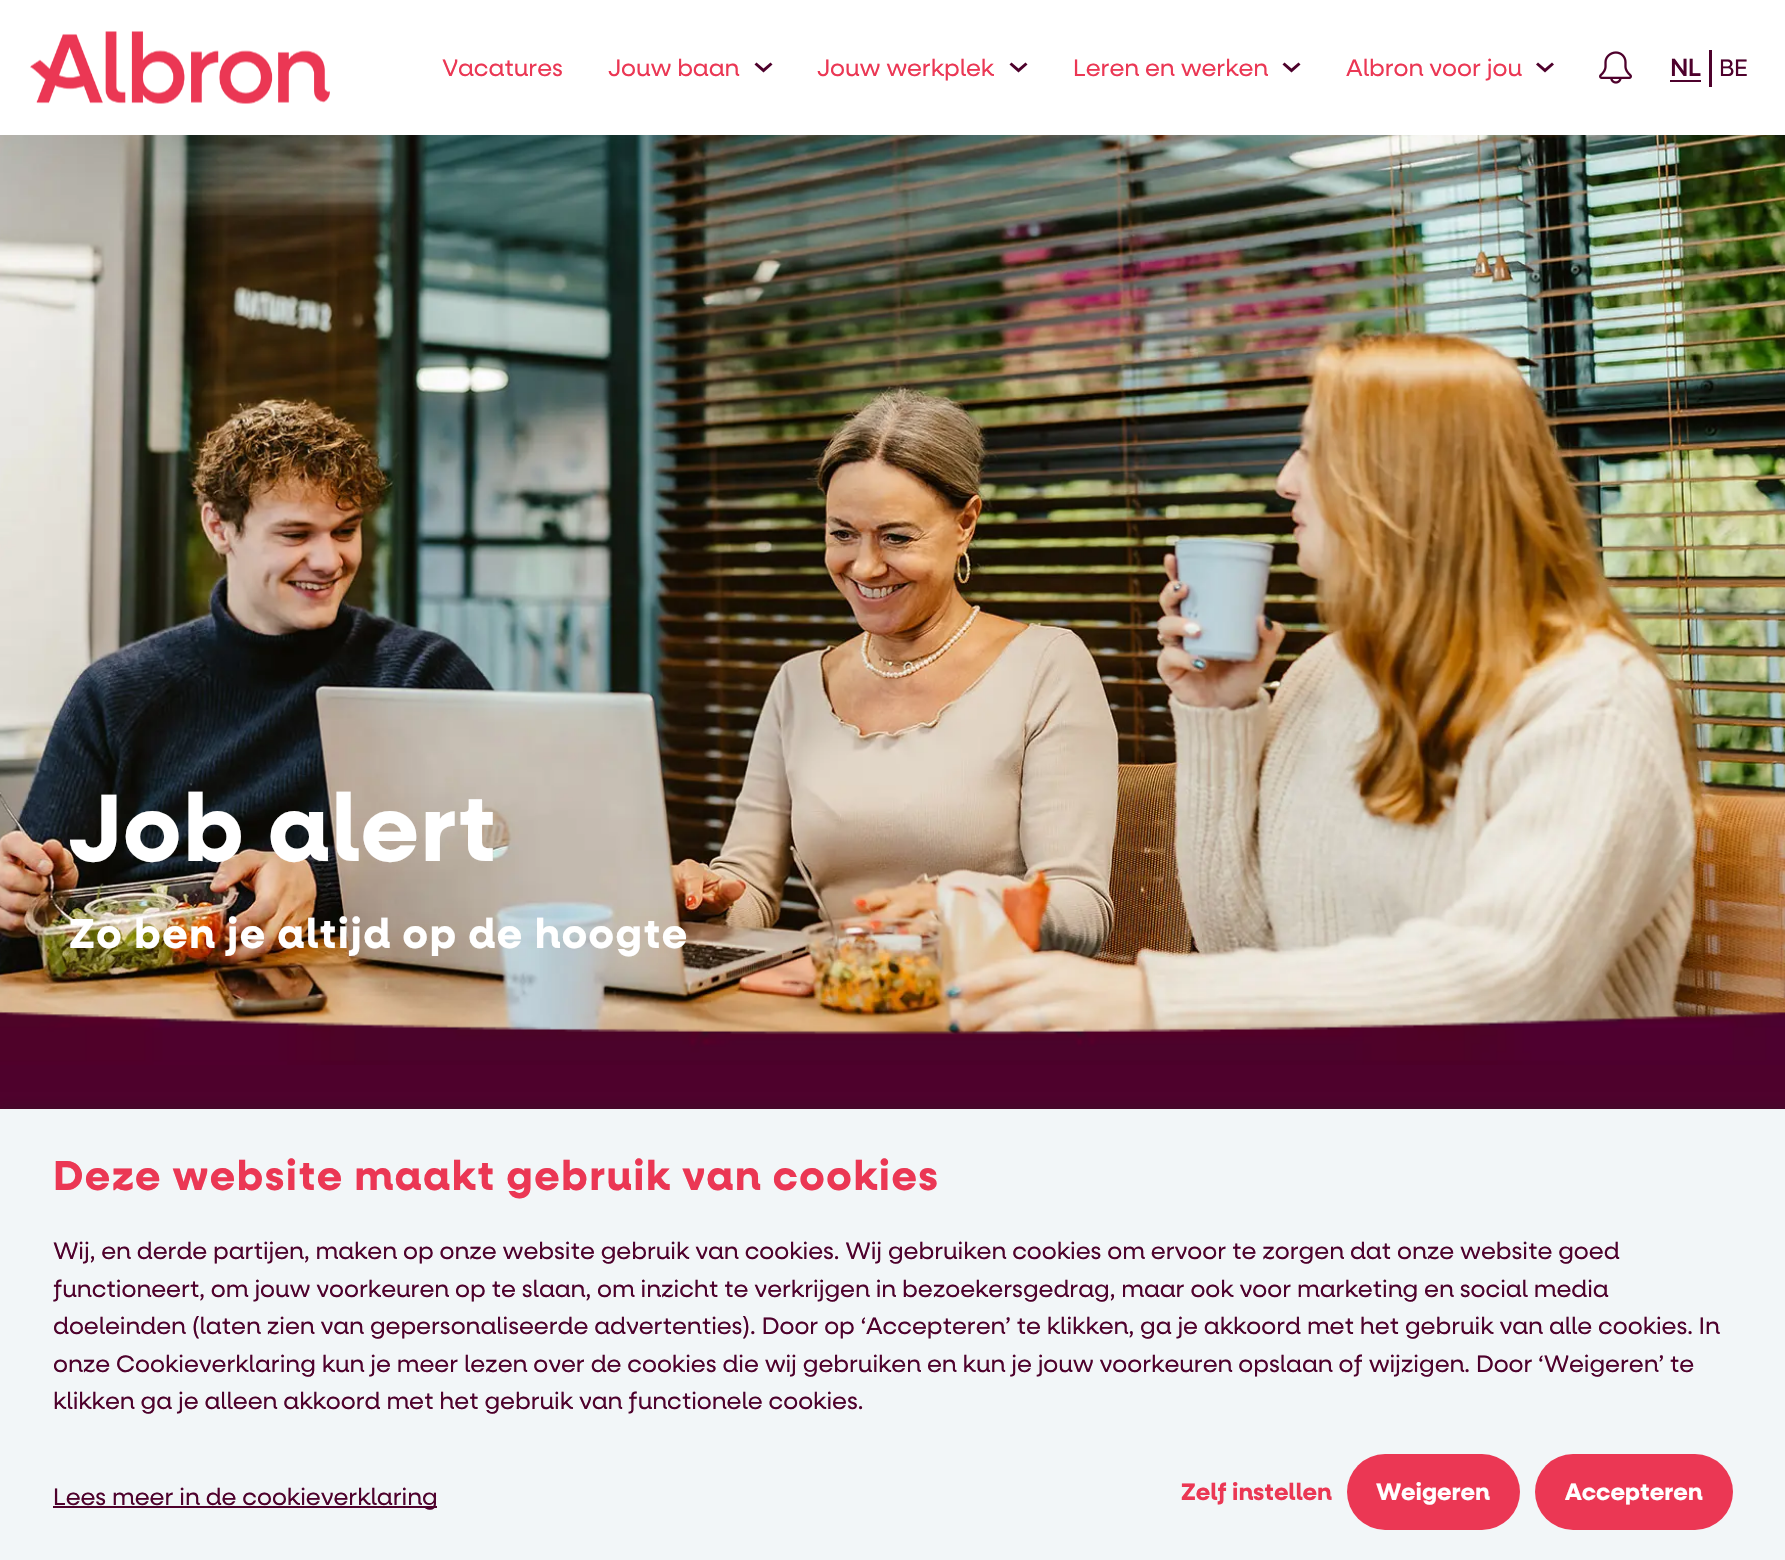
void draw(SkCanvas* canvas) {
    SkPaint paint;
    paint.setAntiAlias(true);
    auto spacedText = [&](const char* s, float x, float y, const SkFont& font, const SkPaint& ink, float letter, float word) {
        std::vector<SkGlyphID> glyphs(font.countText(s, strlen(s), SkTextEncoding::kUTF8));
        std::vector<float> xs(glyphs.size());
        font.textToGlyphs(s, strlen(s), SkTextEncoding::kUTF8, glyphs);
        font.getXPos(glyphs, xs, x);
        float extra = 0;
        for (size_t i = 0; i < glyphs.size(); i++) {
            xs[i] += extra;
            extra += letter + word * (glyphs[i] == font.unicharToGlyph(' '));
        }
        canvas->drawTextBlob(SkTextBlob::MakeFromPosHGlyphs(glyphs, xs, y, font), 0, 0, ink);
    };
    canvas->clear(0xFFFFFFFF);
    canvas->drawImageRect(SkImages::DeferredFromEncodedData(SkData::MakeFromFileName("img1.png")), SkRect::MakeXYWH(30, 31, 300, 73), SkSamplingOptions());
    SkFont font1(fontMgr->matchFamilyStyle("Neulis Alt", SkFontStyle::Normal()), 24);
    font1.setSubpixel(true);
    paint.setColor(0xFFEB3754);
    canvas->drawString("Vacatures", 442, 76, font1, paint);
    canvas->drawString("Jouw baan", 608, 76, font1, paint);
    paint.setColor(0xFF4E012C);
    canvas->drawPath(SkPathBuilder().moveTo(770.5f, 62.5f).lineTo(763.5f, 68.5f).lineTo(756.5f, 62.5f).lineTo(754.5f, 64.5f).lineTo(763.5f, 72.5f).lineTo(772.5f, 64.5f).close().detach(), paint);
    paint.setColor(0xFFEB3754);
    canvas->drawString("Jouw werkplek", 817, 76, font1, paint);
    paint.setColor(0xFF4E012C);
    canvas->drawPath(SkPathBuilder().moveTo(1025.5f, 62.5f).lineTo(1018.5f, 68.5f).lineTo(1011.5f, 62.5f).lineTo(1009.5f, 64.5f).lineTo(1018.5f, 72.5f).lineTo(1027.5f, 64.5f).close().detach(), paint);
    paint.setColor(0xFFEB3754);
    canvas->drawString("Leren en werken", 1073, 76, font1, paint);
    paint.setColor(0xFF4E012C);
    canvas->drawPath(SkPathBuilder().moveTo(1298.5f, 62.5f).lineTo(1291.5f, 68.5f).lineTo(1284.5f, 62.5f).lineTo(1282.5f, 64.5f).lineTo(1291.5f, 72.5f).lineTo(1300.5f, 64.5f).close().detach(), paint);
    paint.setColor(0xFFEB3754);
    canvas->drawString("Albron voor jou", 1346, 76, font1, paint);
    paint.setColor(0xFF4E012C);
    canvas->drawPath(SkPathBuilder().moveTo(1552, 62.5f).lineTo(1545, 68.5f).lineTo(1538, 62.5f).lineTo(1536, 64.5f).lineTo(1545, 72.5f).lineTo(1554, 64.5f).close().detach(), paint);
    canvas->drawImageRect(SkImages::DeferredFromEncodedData(SkData::MakeFromFileName("img2.png")), SkRect::MakeXYWH(1599, 51, 33, 33), SkSamplingOptions());
    canvas->drawRect(SkRect::MakeXYWH(1709, 50, 3, 37), paint);
    SkFont font2(fontMgr->matchFamilyStyle("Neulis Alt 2", SkFontStyle::Bold()), 24);
    font2.setSubpixel(true);
    canvas->drawString("NL", 1670, 76, font2, paint);
    canvas->drawRect(SkRect::MakeXYWH(1670, 80, 31, 2), paint);
    canvas->drawString("BE", 1719, 76, font1, paint);
    canvas->drawImageRect(SkImages::DeferredFromEncodedData(SkData::MakeFromFileName("img3.png")), SkRect::MakeXYWH(0, 135, 1785, 900), SkSamplingOptions());
    SkFont font3(fontMgr->matchFamilyStyle("Neulis Alt", SkFontStyle::Bold()), 96);
    font3.setSubpixel(true);
    paint.setColor(0xFFFFFFFF);
    spacedText("Job alert", 69, 861, font3, paint, 1.5f, 0);
    SkFont font4(fontMgr->matchFamilyStyle("Neulis Alt", SkFontStyle::Bold()), 42);
    font4.setSubpixel(true);
    spacedText("Zo ben je altijd op de hoogte", 69, 948, font4, paint, 1.5f, 0);
    canvas->drawImageRect(SkImages::DeferredFromEncodedData(SkData::MakeFromFileName("img4.png")), SkRect::MakeXYWH(0, 1010, 1785, 55), SkSamplingOptions());
    paint.setColor(0xFF4E012C);
    canvas->drawRect(SkRect::MakeXYWH(0, 1065, 1785, 44), paint);
    paint.setColor(0x47212121);
    paint.setMaskFilter(SkMaskFilter::MakeBlur(kNormal_SkBlurStyle, 5));
    canvas->drawRect(SkRect::MakeXYWH(-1, 1107, 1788, 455), paint);
    paint.setMaskFilter(nullptr);
    paint.setColor(0xFFF2F6F8);
    canvas->drawRect(SkRect::MakeXYWH(0, 1109, 1785, 451), paint);
    paint.setColor(0xFFEB3754);
    spacedText("Deze website maakt gebruik van cookies", 53, 1190, font4, paint, 1.5f, 0);
    paint.setColor(0xFF4E012C);
    canvas->drawString("Wij, en derde partijen, maken op onze website gebruik van cookies. Wij gebruiken cookies om ervoor te zorgen dat onze website goed", 53, 1259, font1, paint);
    canvas->drawString("functioneert, om jouw voorkeuren op te slaan, om inzicht te verkrijgen in bezoekersgedrag, maar ook voor marketing en social media", 53, 1297, font1, paint);
    canvas->drawString("doeleinden (laten zien van gepersonaliseerde advertenties). Door op ‘Accepteren’ te klikken, ga je akkoord met het gebruik van alle cookies. In", 53, 1334, font1, paint);
    canvas->drawString("onze Cookieverklaring kun je meer lezen over de cookies die wij gebruiken en kun je jouw voorkeuren opslaan of wijzigen. Door ‘Weigeren’ te", 53, 1372, font1, paint);
    canvas->drawString("klikken ga je alleen akkoord met het gebruik van functionele cookies.", 53, 1409, font1, paint);
    canvas->drawRect(SkRect::MakeXYWH(53, 1506, 384, 2), paint);
    canvas->drawString("Lees meer in de cookieverklaring", 53, 1505, font1, paint);
    SkFont font5(fontMgr->matchFamilyStyle("Neulis Alt", SkFontStyle::Bold()), 24);
    font5.setSubpixel(true);
    paint.setColor(0xFFEB3754);
    canvas->drawString("Zelf instellen", 1181, 1500, font5, paint);
    canvas->drawRoundRect(SkRect::MakeXYWH(1347, 1454, 173, 76), 38, 38, paint);
    paint.setColor(0xFFFFFFFF);
    canvas->drawString("Weigeren", 1376, 1500, font5, paint);
    paint.setColor(0xFFEB3754);
    canvas->drawRoundRect(SkRect::MakeXYWH(1535, 1454, 198, 76), 38, 38, paint);
    paint.setColor(0xFFFFFFFF);
    canvas->drawString("Accepteren", 1565, 1500, font5, paint);
}
